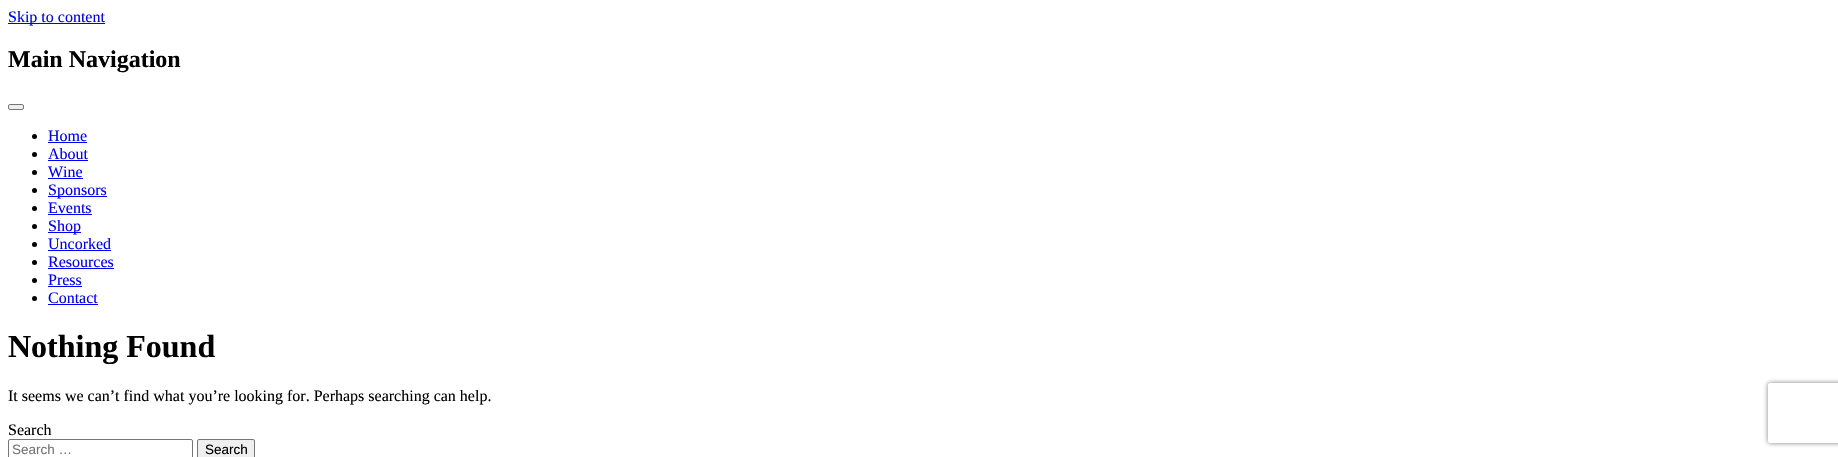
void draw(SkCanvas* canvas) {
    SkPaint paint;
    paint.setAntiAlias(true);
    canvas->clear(0xFFFFFFFF);
    paint.setColor(0xFF0000EE);
    canvas->drawRect(SkRect::MakeXYWH(8, 23, 97, 1), paint);
    SkFont font1(fontMgr->matchFamilyStyle("Liberation Serif", SkFontStyle::Normal()), 16);
    font1.setSubpixel(true);
    canvas->drawString("Skip to content", 8, 22, font1, paint);
    SkFont font2(fontMgr->matchFamilyStyle("Liberation Serif", SkFontStyle::Bold()), 24);
    font2.setSubpixel(true);
    paint.setColor(0xFF000000);
    canvas->drawString("Main Navigation", 8, 67, font2, paint);
    paint.setColor(0xFFEFEFEF);
    canvas->drawRoundRect(SkRect::MakeXYWH(8.5f, 104.5f, 15, 5), 1.5f, 1.5f, paint);
    paint.setStyle(SkPaint::kStroke_Style);
    paint.setStrokeWidth(1);
    paint.setColor(0xFF767676);
    canvas->drawRoundRect(SkRect::MakeXYWH(8.5f, 104.5f, 15, 5), 1.5f, 1.5f, paint);
    paint.setStyle(SkPaint::kFill_Style);
    paint.setColor(0xFF000000);
    canvas->drawCircle(34.5f, 136.5f, 2.5f, paint);
    paint.setColor(0xFF0000EE);
    canvas->drawString("Home", 48, 141, font1, paint);
    canvas->drawRect(SkRect::MakeXYWH(48, 142, 39, 1), paint);
    paint.setColor(0xFF000000);
    canvas->drawCircle(34.5f, 154.5f, 2.5f, paint);
    paint.setColor(0xFF0000EE);
    canvas->drawString("About", 48, 159, font1, paint);
    canvas->drawRect(SkRect::MakeXYWH(48, 160, 40, 1), paint);
    paint.setColor(0xFF000000);
    canvas->drawCircle(34.5f, 172.5f, 2.5f, paint);
    paint.setColor(0xFF0000EE);
    canvas->drawString("Wine", 48, 177, font1, paint);
    canvas->drawRect(SkRect::MakeXYWH(48, 178, 35, 1), paint);
    paint.setColor(0xFF000000);
    canvas->drawCircle(34.5f, 190.5f, 2.5f, paint);
    paint.setColor(0xFF0000EE);
    canvas->drawRect(SkRect::MakeXYWH(48, 196, 59, 1), paint);
    canvas->drawString("Sponsors", 48, 195, font1, paint);
    paint.setColor(0xFF000000);
    canvas->drawCircle(34.5f, 208.5f, 2.5f, paint);
    paint.setColor(0xFF0000EE);
    canvas->drawString("Events", 48, 213, font1, paint);
    canvas->drawRect(SkRect::MakeXYWH(48, 214, 44, 1), paint);
    paint.setColor(0xFF000000);
    canvas->drawCircle(34.5f, 226.5f, 2.5f, paint);
    paint.setColor(0xFF0000EE);
    canvas->drawRect(SkRect::MakeXYWH(48, 232, 33, 1), paint);
    canvas->drawString("Shop", 48, 231, font1, paint);
    paint.setColor(0xFF000000);
    canvas->drawCircle(34.5f, 244.5f, 2.5f, paint);
    paint.setColor(0xFF0000EE);
    canvas->drawString("Uncorked", 48, 249, font1, paint);
    canvas->drawRect(SkRect::MakeXYWH(48, 250, 63, 1), paint);
    paint.setColor(0xFF000000);
    canvas->drawCircle(34.5f, 262.5f, 2.5f, paint);
    paint.setColor(0xFF0000EE);
    canvas->drawString("Resources", 48, 267, font1, paint);
    canvas->drawRect(SkRect::MakeXYWH(48, 268, 66, 1), paint);
    paint.setColor(0xFF000000);
    canvas->drawCircle(34.5f, 280.5f, 2.5f, paint);
    paint.setColor(0xFF0000EE);
    canvas->drawString("Press", 48, 285, font1, paint);
    canvas->drawRect(SkRect::MakeXYWH(48, 286, 34, 1), paint);
    paint.setColor(0xFF000000);
    canvas->drawCircle(34.5f, 298.5f, 2.5f, paint);
    paint.setColor(0xFF0000EE);
    canvas->drawString("Contact", 48, 303, font1, paint);
    canvas->drawRect(SkRect::MakeXYWH(48, 304, 50, 1), paint);
    SkFont font3(fontMgr->matchFamilyStyle("Liberation Serif", SkFontStyle::Bold()), 32);
    font3.setSubpixel(true);
    paint.setColor(0xFF000000);
    canvas->drawString("Nothing Found", 8, 357, font3, paint);
    canvas->drawString("It seems we can’t find what you’re looking for. Perhaps searching can help.", 8, 401, font1, paint);
    canvas->drawString("Search", 8, 435, font1, paint);
    paint.setStyle(SkPaint::kStroke_Style);
    paint.setColor(0xFF767676);
    canvas->drawRoundRect(SkRect::MakeXYWH(8.5f, 439.5f, 184, 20), 1.5f, 1.5f, paint);
    SkFont font4(fontMgr->matchFamilyStyle("Liberation Sans", SkFontStyle::Normal()), 13.5f);
    font4.setSubpixel(true);
    paint.setStyle(SkPaint::kFill_Style);
    paint.setColor(0xFF757575);
    canvas->drawString("Search …", 12, 454, font4, paint);
    paint.setColor(0xFFEFEFEF);
    canvas->drawRoundRect(SkRect::MakeXYWH(197.5f, 439.5f, 57, 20), 1.5f, 1.5f, paint);
    paint.setStyle(SkPaint::kStroke_Style);
    paint.setColor(0xFF767676);
    canvas->drawRoundRect(SkRect::MakeXYWH(197.5f, 439.5f, 57, 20), 1.5f, 1.5f, paint);
    paint.setStyle(SkPaint::kFill_Style);
    paint.setColor(0xFF000000);
    canvas->drawString("Search", 205, 454, font4, paint);
    canvas->save();
    canvas->clipPath(SkPathBuilder(SkPathFillType::kEvenOdd).moveTo(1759, 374).lineTo(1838, 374).lineTo(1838, 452).lineTo(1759, 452).close().moveTo(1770, 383).lineTo(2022, 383).cubicTo(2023, 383, 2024, 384, 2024, 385).lineTo(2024, 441).cubicTo(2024, 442, 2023, 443, 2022, 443).lineTo(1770, 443).cubicTo(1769, 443, 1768, 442, 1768, 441).lineTo(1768, 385).cubicTo(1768, 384, 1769, 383, 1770, 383).close().detach(), true);
    paint.setColor(0xFF808080);
    paint.setMaskFilter(SkMaskFilter::MakeBlur(kNormal_SkBlurStyle, 2.5f));
    canvas->drawRoundRect(SkRect::MakeXYWH(1768, 383, 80, 60), 2, 2, paint);
    paint.setMaskFilter(nullptr);
    canvas->restore();
}
